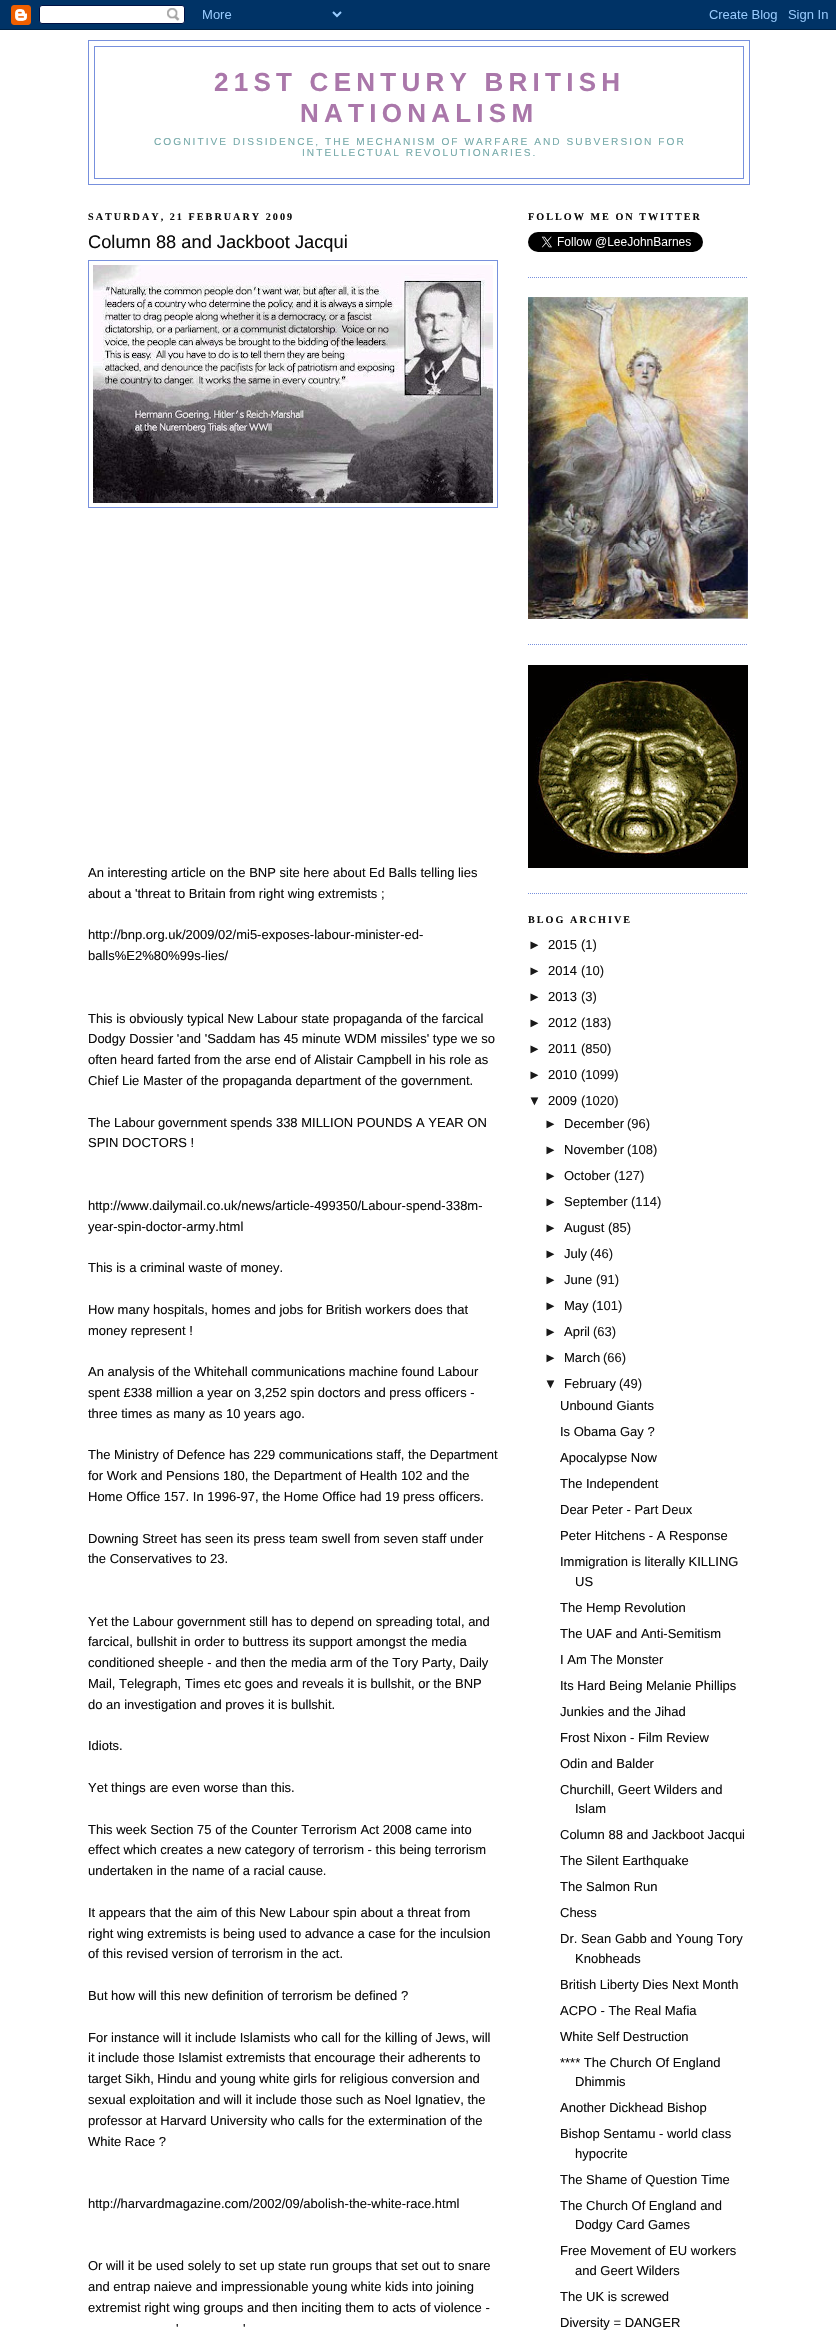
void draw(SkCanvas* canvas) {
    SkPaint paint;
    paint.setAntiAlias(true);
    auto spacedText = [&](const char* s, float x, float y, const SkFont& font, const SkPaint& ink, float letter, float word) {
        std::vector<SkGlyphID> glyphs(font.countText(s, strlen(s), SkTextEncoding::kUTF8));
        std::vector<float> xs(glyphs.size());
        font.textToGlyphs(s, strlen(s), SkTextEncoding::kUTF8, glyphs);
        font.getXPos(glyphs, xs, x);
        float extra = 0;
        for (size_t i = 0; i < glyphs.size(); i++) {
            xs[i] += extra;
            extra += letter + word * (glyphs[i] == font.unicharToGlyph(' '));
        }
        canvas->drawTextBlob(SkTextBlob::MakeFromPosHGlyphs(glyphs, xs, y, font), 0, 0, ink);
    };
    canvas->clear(0xFFFFFFFF);
    canvas->drawImageRect(SkImages::DeferredFromEncodedData(SkData::MakeFromFileName("img1.png")), SkRect::MakeXYWH(0, 0, 836, 30), SkSamplingOptions());
    paint.setStyle(SkPaint::kStroke_Style);
    paint.setStrokeWidth(1);
    paint.setColor(0xFF7790DD);
    canvas->drawRect(SkRect::MakeXYWH(88.5f, 40.5f, 661, 144), paint);
    canvas->drawRect(SkRect::MakeXYWH(94.5f, 46.5f, 649, 132), paint);
    SkFont font1(fontMgr->matchFamilyStyle("Liberation Sans", SkFontStyle::Bold()), 26);
    font1.setSubpixel(true);
    paint.setStyle(SkPaint::kFill_Style);
    paint.setColor(0xFFAA77AA);
    spacedText("21ST CENTURY BRITISH", 214, 91, font1, paint, 5.25f, 0);
    spacedText("NATIONALISM", 300, 122, font1, paint, 5.25f, 0);
    SkFont font2(fontMgr->matchFamilyStyle("Liberation Sans", SkFontStyle::Normal()), 10.15f);
    font2.setSubpixel(true);
    paint.setColor(0xFF76AAAA);
    spacedText("COGNITIVE DISSIDENCE, THE MECHANISM OF WARFARE AND SUBVERSION FOR", 154, 145, font2, paint, 2.03f, 0);
    spacedText("INTELLECTUAL REVOLUTIONARIES.", 302, 156, font2, paint, 2.03f, 0);
    SkFont font3(fontMgr->matchFamilyStyle("Liberation Serif", SkFontStyle::Bold()), 10.15f);
    font3.setSubpixel(true);
    paint.setColor(0xFF0C0C0C);
    spacedText("SATURDAY, 21 FEBRUARY 2009", 88, 220, font3, paint, 2.03f, 0);
    SkFont font4(fontMgr->matchFamilyStyle("Liberation Sans", SkFontStyle::Normal()), 18.25f);
    font4.setSubpixel(true);
    canvas->drawString("Column 88 and Jackboot Jacqui", 88, 248, font4, paint);
    paint.setStyle(SkPaint::kStroke_Style);
    paint.setColor(0xFF7790DD);
    canvas->drawRect(SkRect::MakeXYWH(88.5f, 260.5f, 409, 247), paint);
    canvas->drawImageRect(SkImages::DeferredFromEncodedData(SkData::MakeFromFileName("img2.png")), SkRect::MakeXYWH(93, 265, 400, 238), SkSamplingOptions());
    SkFont font5(fontMgr->matchFamilyStyle("Liberation Sans", SkFontStyle::Normal()), 13);
    font5.setSubpixel(true);
    paint.setStyle(SkPaint::kFill_Style);
    paint.setColor(0xFF0C0C0C);
    canvas->drawString("An interesting article on the BNP site here about Ed Balls telling lies", 88, 877, font5, paint);
    canvas->drawString("about a 'threat to Britain from right wing extremists ;", 88, 898, font5, paint);
    canvas->drawString("http://bnp.org.uk/2009/02/mi5-exposes-labour-minister-ed-", 88, 939, font5, paint);
    canvas->drawString("balls%E2%80%99s-lies/", 88, 960, font5, paint);
    canvas->drawString("This is obviously typical New Labour state propaganda of the farcical", 88, 1023, font5, paint);
    canvas->drawString("Dodgy Dossier 'and 'Saddam has 45 minute WDM missiles' type we so", 88, 1043, font5, paint);
    canvas->drawString("often heard farted from the arse end of Alistair Campbell in his role as", 88, 1064, font5, paint);
    canvas->drawString("Chief Lie Master of the propaganda department of the government.", 88, 1085, font5, paint);
    canvas->drawString("The Labour government spends 338 MILLION POUNDS A YEAR ON", 88, 1127, font5, paint);
    canvas->drawString("SPIN DOCTORS !", 88, 1147, font5, paint);
    canvas->drawString("http://www.dailymail.co.uk/news/article-499350/Labour-spend-338m-", 88, 1210, font5, paint);
    canvas->drawString("year-spin-doctor-army.html", 88, 1231, font5, paint);
    canvas->drawString("This is a criminal waste of money.", 88, 1272, font5, paint);
    canvas->drawString("How many hospitals, homes and jobs for British workers does that", 88, 1314, font5, paint);
    canvas->drawString("money represent !", 88, 1335, font5, paint);
    canvas->drawString("An analysis of the Whitehall communications machine found Labour", 88, 1376, font5, paint);
    canvas->drawString("spent £338 million a year on 3,252 spin doctors and press officers -", 88, 1397, font5, paint);
    canvas->drawString("three times as many as 10 years ago.", 88, 1418, font5, paint);
    canvas->drawString("The Ministry of Defence has 229 communications staff, the Department", 88, 1459, font5, paint);
    canvas->drawString("for Work and Pensions 180, the Department of Health 102 and the", 88, 1480, font5, paint);
    canvas->drawString("Home Office 157. In 1996-97, the Home Office had 19 press officers.", 88, 1501, font5, paint);
    canvas->drawString("Downing Street has seen its press team swell from seven staff under", 88, 1543, font5, paint);
    canvas->drawString("the Conservatives to 23.", 88, 1563, font5, paint);
    canvas->drawString("Yet the Labour government still has to depend on spreading total, and", 88, 1626, font5, paint);
    canvas->drawString("farcical, bullshit in order to buttress its support amongst the media", 88, 1646, font5, paint);
    canvas->drawString("conditioned sheeple - and then the media arm of the Tory Party, Daily", 88, 1667, font5, paint);
    canvas->drawString("Mail, Telegraph, Times etc goes and reveals it is bullshit, or the BNP", 88, 1688, font5, paint);
    canvas->drawString("do an investigation and proves it is bullshit.", 88, 1709, font5, paint);
    canvas->drawString("Idiots.", 88, 1750, font5, paint);
    canvas->drawString("Yet things are even worse than this.", 88, 1792, font5, paint);
    canvas->drawString("This week Section 75 of the Counter Terrorism Act 2008 came into", 88, 1834, font5, paint);
    canvas->drawString("effect which creates a new category of terrorism - this being terrorism", 88, 1854, font5, paint);
    canvas->drawString("undertaken in the name of a racial cause.", 88, 1875, font5, paint);
    canvas->drawString("It appears that the aim of this New Labour spin about a threat from", 88, 1917, font5, paint);
    canvas->drawString("right wing extremists is being used to advance a case for the inculsion", 88, 1938, font5, paint);
    canvas->drawString("of this revised version of terrorism in the act.", 88, 1958, font5, paint);
    canvas->drawString("But how will this new definition of terrorism be defined ?", 88, 2000, font5, paint);
    canvas->drawString("For instance will it include Islamists who call for the killing of Jews, will", 88, 2042, font5, paint);
    canvas->drawString("it include those Islamist extremists that encourage their adherents to", 88, 2062, font5, paint);
    canvas->drawString("target Sikh, Hindu and young white girls for religious conversion and", 88, 2083, font5, paint);
    canvas->drawString("sexual exploitation and will it include those such as Noel Ignatiev, the", 88, 2104, font5, paint);
    canvas->drawString("professor at Harvard University who calls for the extermination of the", 88, 2125, font5, paint);
    canvas->drawString("White Race ?", 88, 2146, font5, paint);
    canvas->drawString("http://harvardmagazine.com/2002/09/abolish-the-white-race.html", 88, 2208, font5, paint);
    canvas->drawString("Or will it be used solely to set up state run groups that set out to snare", 88, 2270, font5, paint);
    canvas->drawString("and entrap naieve and impressionable young white kids into joining", 88, 2291, font5, paint);
    canvas->drawString("extremist right wing groups and then inciting them to acts of violence -", 88, 2312, font5, paint);
    canvas->drawString("'", 176, 2333, font5, paint);
    canvas->drawString("'", 243, 2333, font5, paint);
    paint.setStyle(SkPaint::kStroke_Style);
    paint.setColor(0xFF7790DD);
    paint.setPathEffect(SkDashPathEffect::Make({{1, 1}}, 0));
    canvas->drawPath(SkPathBuilder().moveTo(528, 277.5f).lineTo(748, 277.5f).detach(), paint);
    paint.setPathEffect(nullptr);
    paint.setStyle(SkPaint::kFill_Style);
    paint.setColor(0xFF0C0C0C);
    spacedText("FOLLOW ME ON TWITTER", 528, 220, font3, paint, 2.03f, 0);
    canvas->drawImageRect(SkImages::DeferredFromEncodedData(SkData::MakeFromFileName("img3.png")), SkRect::MakeXYWH(528, 232, 175, 20), SkSamplingOptions());
    paint.setStyle(SkPaint::kStroke_Style);
    paint.setColor(0xFF7790DD);
    paint.setPathEffect(SkDashPathEffect::Make({{1, 1}}, 0));
    canvas->drawPath(SkPathBuilder().moveTo(528, 644.5f).lineTo(748, 644.5f).detach(), paint);
    paint.setPathEffect(nullptr);
    canvas->drawImageRect(SkImages::DeferredFromEncodedData(SkData::MakeFromFileName("img4.png")), SkRect::MakeXYWH(528, 297, 220, 322), SkSamplingOptions());
    paint.setPathEffect(SkDashPathEffect::Make({{1, 1}}, 0));
    canvas->drawPath(SkPathBuilder().moveTo(528, 893.5f).lineTo(748, 893.5f).detach(), paint);
    paint.setPathEffect(nullptr);
    canvas->drawImageRect(SkImages::DeferredFromEncodedData(SkData::MakeFromFileName("img5.png")), SkRect::MakeXYWH(528, 665, 220, 203), SkSamplingOptions());
    paint.setStyle(SkPaint::kFill_Style);
    paint.setColor(0xFF0C0C0C);
    spacedText("BLOG ARCHIVE", 528, 923, font3, paint, 2.03f, 0);
    paint.setColor(0xFF191919);
    canvas->drawString("►", 528, 949, font5, paint);
    paint.setColor(0xFF0C0C0C);
    canvas->drawString("2015", 548, 949, font5, paint);
    paint.setColor(0xFF191919);
    canvas->drawString("(1)", 581, 949, font5, paint);
    canvas->drawString("►", 528, 975, font5, paint);
    paint.setColor(0xFF0C0C0C);
    canvas->drawString("2014", 548, 975, font5, paint);
    paint.setColor(0xFF191919);
    canvas->drawString("(10)", 581, 975, font5, paint);
    canvas->drawString("►", 528, 1001, font5, paint);
    paint.setColor(0xFF0C0C0C);
    canvas->drawString("2013", 548, 1001, font5, paint);
    paint.setColor(0xFF191919);
    canvas->drawString("(3)", 581, 1001, font5, paint);
    canvas->drawString("►", 528, 1027, font5, paint);
    paint.setColor(0xFF0C0C0C);
    canvas->drawString("2012", 548, 1027, font5, paint);
    paint.setColor(0xFF191919);
    canvas->drawString("(183)", 581, 1027, font5, paint);
    canvas->drawString("►", 528, 1053, font5, paint);
    paint.setColor(0xFF0C0C0C);
    canvas->drawString("2011", 548, 1053, font5, paint);
    paint.setColor(0xFF191919);
    canvas->drawString("(850)", 581, 1053, font5, paint);
    canvas->drawString("►", 528, 1079, font5, paint);
    paint.setColor(0xFF0C0C0C);
    canvas->drawString("2010", 548, 1079, font5, paint);
    paint.setColor(0xFF191919);
    canvas->drawString("(1099)", 581, 1079, font5, paint);
    canvas->drawString("▼", 528, 1105, font5, paint);
    paint.setColor(0xFF0C0C0C);
    canvas->drawString("2009", 548, 1105, font5, paint);
    paint.setColor(0xFF191919);
    canvas->drawString("(1020)", 581, 1105, font5, paint);
    canvas->drawString("►", 544, 1128, font5, paint);
    paint.setColor(0xFF0C0C0C);
    canvas->drawString("December", 564, 1128, font5, paint);
    paint.setColor(0xFF191919);
    canvas->drawString("(96)", 627, 1128, font5, paint);
    canvas->drawString("►", 544, 1154, font5, paint);
    paint.setColor(0xFF0C0C0C);
    canvas->drawString("November", 564, 1154, font5, paint);
    paint.setColor(0xFF191919);
    canvas->drawString("(108)", 627, 1154, font5, paint);
    canvas->drawString("►", 544, 1180, font5, paint);
    paint.setColor(0xFF0C0C0C);
    canvas->drawString("October", 564, 1180, font5, paint);
    paint.setColor(0xFF191919);
    canvas->drawString("(127)", 614, 1180, font5, paint);
    canvas->drawString("►", 544, 1206, font5, paint);
    paint.setColor(0xFF0C0C0C);
    canvas->drawString("September", 564, 1206, font5, paint);
    paint.setColor(0xFF191919);
    canvas->drawString("(114)", 631, 1206, font5, paint);
    canvas->drawString("►", 544, 1232, font5, paint);
    paint.setColor(0xFF0C0C0C);
    canvas->drawString("August", 564, 1232, font5, paint);
    paint.setColor(0xFF191919);
    canvas->drawString("(85)", 608, 1232, font5, paint);
    canvas->drawString("►", 544, 1258, font5, paint);
    paint.setColor(0xFF0C0C0C);
    canvas->drawString("July", 564, 1258, font5, paint);
    paint.setColor(0xFF191919);
    canvas->drawString("(46)", 590, 1258, font5, paint);
    canvas->drawString("►", 544, 1284, font5, paint);
    paint.setColor(0xFF0C0C0C);
    canvas->drawString("June", 564, 1284, font5, paint);
    paint.setColor(0xFF191919);
    canvas->drawString("(91)", 596, 1284, font5, paint);
    canvas->drawString("►", 544, 1310, font5, paint);
    paint.setColor(0xFF0C0C0C);
    canvas->drawString("May", 564, 1310, font5, paint);
    paint.setColor(0xFF191919);
    canvas->drawString("(101)", 592, 1310, font5, paint);
    canvas->drawString("►", 544, 1336, font5, paint);
    paint.setColor(0xFF0C0C0C);
    canvas->drawString("April", 564, 1336, font5, paint);
    paint.setColor(0xFF191919);
    canvas->drawString("(63)", 593, 1336, font5, paint);
    canvas->drawString("►", 544, 1362, font5, paint);
    paint.setColor(0xFF0C0C0C);
    canvas->drawString("March", 564, 1362, font5, paint);
    paint.setColor(0xFF191919);
    canvas->drawString("(66)", 603, 1362, font5, paint);
    canvas->drawString("▼", 544, 1388, font5, paint);
    paint.setColor(0xFF0C0C0C);
    canvas->drawString("February", 564, 1388, font5, paint);
    paint.setColor(0xFF191919);
    canvas->drawString("(49)", 619, 1388, font5, paint);
    paint.setColor(0xFF0C0C0C);
    canvas->drawString("Unbound Giants", 560, 1410, font5, paint);
    canvas->drawString("Is Obama Gay ?", 560, 1436, font5, paint);
    canvas->drawString("Apocalypse Now", 560, 1462, font5, paint);
    canvas->drawString("The Independent", 560, 1488, font5, paint);
    canvas->drawString("Dear Peter - Part Deux", 560, 1514, font5, paint);
    canvas->drawString("Peter Hitchens - A Response", 560, 1540, font5, paint);
    canvas->drawString("Immigration is literally KILLING", 560, 1566, font5, paint);
    canvas->drawString("US", 575, 1586, font5, paint);
    canvas->drawString("The Hemp Revolution", 560, 1612, font5, paint);
    canvas->drawString("The UAF and Anti-Semitism", 560, 1638, font5, paint);
    canvas->drawString("I Am The Monster", 560, 1664, font5, paint);
    canvas->drawString("Its Hard Being Melanie Phillips", 560, 1690, font5, paint);
    canvas->drawString("Junkies and the Jihad", 560, 1716, font5, paint);
    canvas->drawString("Frost Nixon - Film Review", 560, 1742, font5, paint);
    canvas->drawString("Odin and Balder", 560, 1768, font5, paint);
    canvas->drawString("Churchill, Geert Wilders and", 560, 1794, font5, paint);
    canvas->drawString("Islam", 575, 1813, font5, paint);
    canvas->drawString("Column 88 and Jackboot Jacqui", 560, 1839, font5, paint);
    canvas->drawString("The Silent Earthquake", 560, 1865, font5, paint);
    canvas->drawString("The Salmon Run", 560, 1891, font5, paint);
    canvas->drawString("Chess", 560, 1917, font5, paint);
    canvas->drawString("Dr. Sean Gabb and Young Tory", 560, 1943, font5, paint);
    canvas->drawString("Knobheads", 575, 1963, font5, paint);
    canvas->drawString("British Liberty Dies Next Month", 560, 1989, font5, paint);
    canvas->drawString("ACPO - The Real Mafia", 560, 2015, font5, paint);
    canvas->drawString("White Self Destruction", 560, 2041, font5, paint);
    canvas->drawString("**** The Church Of England", 560, 2067, font5, paint);
    canvas->drawString("Dhimmis", 575, 2086, font5, paint);
    canvas->drawString("Another Dickhead Bishop", 560, 2112, font5, paint);
    canvas->drawString("Bishop Sentamu - world class", 560, 2138, font5, paint);
    canvas->drawString("hypocrite", 575, 2158, font5, paint);
    canvas->drawString("The Shame of Question Time", 560, 2184, font5, paint);
    canvas->drawString("The Church Of England and", 560, 2210, font5, paint);
    canvas->drawString("Dodgy Card Games", 575, 2229, font5, paint);
    canvas->drawString("Free Movement of EU workers", 560, 2255, font5, paint);
    canvas->drawString("and Geert Wilders", 575, 2275, font5, paint);
    canvas->drawString("The UK is screwed", 560, 2301, font5, paint);
    canvas->drawString("Diversity = DANGER", 560, 2327, font5, paint);
}
